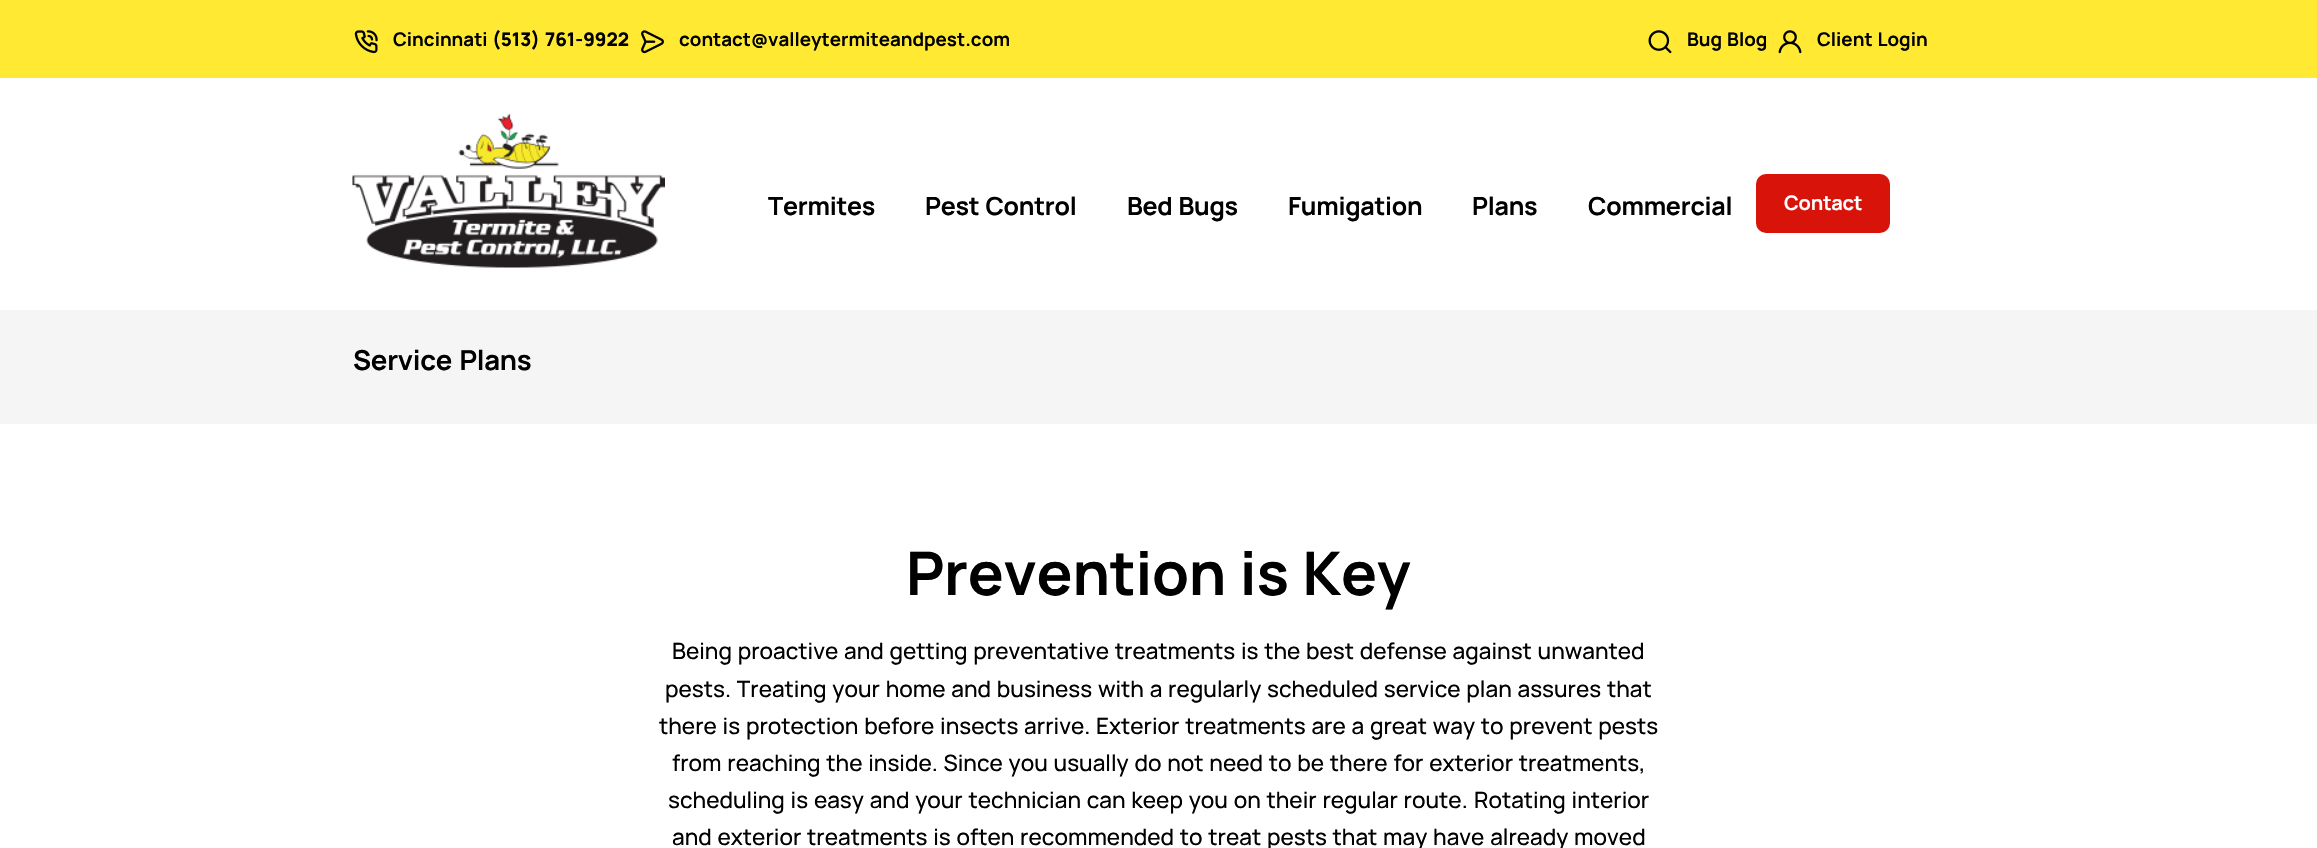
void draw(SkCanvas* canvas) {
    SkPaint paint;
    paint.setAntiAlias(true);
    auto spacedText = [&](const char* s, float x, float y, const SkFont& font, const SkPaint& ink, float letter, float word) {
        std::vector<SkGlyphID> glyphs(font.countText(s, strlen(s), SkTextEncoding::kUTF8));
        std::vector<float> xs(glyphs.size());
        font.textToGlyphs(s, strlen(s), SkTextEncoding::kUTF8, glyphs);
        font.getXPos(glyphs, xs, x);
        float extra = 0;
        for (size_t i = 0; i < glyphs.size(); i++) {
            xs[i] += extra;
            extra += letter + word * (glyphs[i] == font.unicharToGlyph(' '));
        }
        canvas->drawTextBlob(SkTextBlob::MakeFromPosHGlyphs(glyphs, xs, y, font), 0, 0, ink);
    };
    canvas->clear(0xFFFFFFFF);
    paint.setColor(0xFFFFE933);
    canvas->drawRect(SkRect::MakeXYWH(0, 0, 2317, 78), paint);
    canvas->drawImageRect(SkImages::DeferredFromEncodedData(SkData::MakeFromFileName("img1.png")), SkRect::MakeXYWH(354, 30, 24, 24), SkSamplingOptions());
    SkFont font1(fontMgr->matchFamilyStyle("Manrope", SkFontStyle::Bold()), 18.75f);
    font1.setSubpixel(true);
    paint.setColor(0xFF000000);
    canvas->drawString("Cincinnati", 393, 46, font1, paint);
    SkFont font2(fontMgr->matchFamilyStyle("Manrope", SkFontStyle(800, SkFontStyle::kNormal_Width, SkFontStyle::kUpright_Slant)), 18.75f);
    font2.setSubpixel(true);
    spacedText("(513) 761-9922", 492, 46, font2, paint, 0, 1.25f);
    canvas->drawImageRect(SkImages::DeferredFromEncodedData(SkData::MakeFromFileName("img2.png")), SkRect::MakeXYWH(641, 30, 23, 24), SkSamplingOptions());
    canvas->drawString("contact@valleytermiteandpest.com", 679, 46, font1, paint);
    canvas->drawImageRect(SkImages::DeferredFromEncodedData(SkData::MakeFromFileName("img3.png")), SkRect::MakeXYWH(1648, 30, 24, 24), SkSamplingOptions());
    spacedText("Bug Blog", 1687, 46, font1, paint, 0, 1.25f);
    canvas->drawImageRect(SkImages::DeferredFromEncodedData(SkData::MakeFromFileName("img4.png")), SkRect::MakeXYWH(1778, 30, 24, 24), SkSamplingOptions());
    spacedText("Client Login", 1817, 46, font1, paint, 0, 1.25f);
    canvas->drawImageRect(SkImages::DeferredFromEncodedData(SkData::MakeFromFileName("img5.png")), SkRect::MakeXYWH(352, 113, 313, 155), SkSamplingOptions());
    SkFont font3(fontMgr->matchFamilyStyle("Manrope", SkFontStyle::Bold()), 25);
    font3.setSubpixel(true);
    spacedText("Termites", 768, 215, font3, paint, -0.25f, 0);
    spacedText("Pest Control", 925, 215, font3, paint, -0.25f, 1.25f);
    spacedText("Bed Bugs", 1127, 215, font3, paint, -0.25f, 1.25f);
    spacedText("Fumigation", 1288, 215, font3, paint, -0.25f, 0);
    spacedText("Plans", 1472, 215, font3, paint, -0.25f, 0);
    spacedText("Commercial", 1588, 215, font3, paint, -0.25f, 0);
    paint.setColor(0xFFD8140A);
    canvas->drawRoundRect(SkRect::MakeXYWH(1757.5f, 175.5f, 131, 56), 8.5f, 8.5f, paint);
    paint.setStyle(SkPaint::kStroke_Style);
    paint.setStrokeWidth(3);
    canvas->drawRoundRect(SkRect::MakeXYWH(1757.5f, 175.5f, 131, 56), 8.5f, 8.5f, paint);
    SkFont font4(fontMgr->matchFamilyStyle("Manrope", SkFontStyle::Bold()), 20);
    font4.setSubpixel(true);
    paint.setStyle(SkPaint::kFill_Style);
    paint.setColor(0xFFFFFFFF);
    spacedText("Contact", 1784, 210, font4, paint, -0.25f, 0);
    paint.setColor(0xFFF5F5F5);
    canvas->drawRect(SkRect::MakeXYWH(0, 310, 2317, 114), paint);
    SkFont font5(fontMgr->matchFamilyStyle("Manrope", SkFontStyle::Bold()), 27.5f);
    font5.setSubpixel(true);
    paint.setColor(0xFF000000);
    spacedText("Service Plans", 353, 370, font5, paint, -0.25f, 2);
    SkFont font6(fontMgr->matchFamilyStyle("Manrope", SkFontStyle::Bold()), 60);
    font6.setSubpixel(true);
    spacedText("Prevention is Key", 906, 595, font6, paint, -0.25f, 2);
    SkFont font7(fontMgr->matchFamilyStyle("Manrope", SkFontStyle(500, SkFontStyle::kNormal_Width, SkFontStyle::kUpright_Slant)), 22.5f);
    font7.setSubpixel(true);
    spacedText("Being proactive and getting preventative treatments is the best defense against unwanted", 672, 659, font7, paint, 0, 1.25f);
    spacedText("pests. Treating your home and business with a regularly scheduled service plan assures that", 665, 697, font7, paint, 0, 1.25f);
    spacedText("there is protection before insects arrive. Exterior treatments are a great way to prevent pests", 659, 734, font7, paint, 0, 1.25f);
    spacedText("from reaching the inside. Since you usually do not need to be there for exterior treatments,", 672, 771, font7, paint, 0, 1.25f);
    spacedText("scheduling is easy and your technician can keep you on their regular route.", 668, 808, font7, paint, 0, 1.25f);
    spacedText("Rotating interior", 1474, 808, font7, paint, 0, 1.25f);
    spacedText("and exterior treatments is often recommended to treat pests that may have already moved", 672, 845, font7, paint, 0, 1.25f);
}
